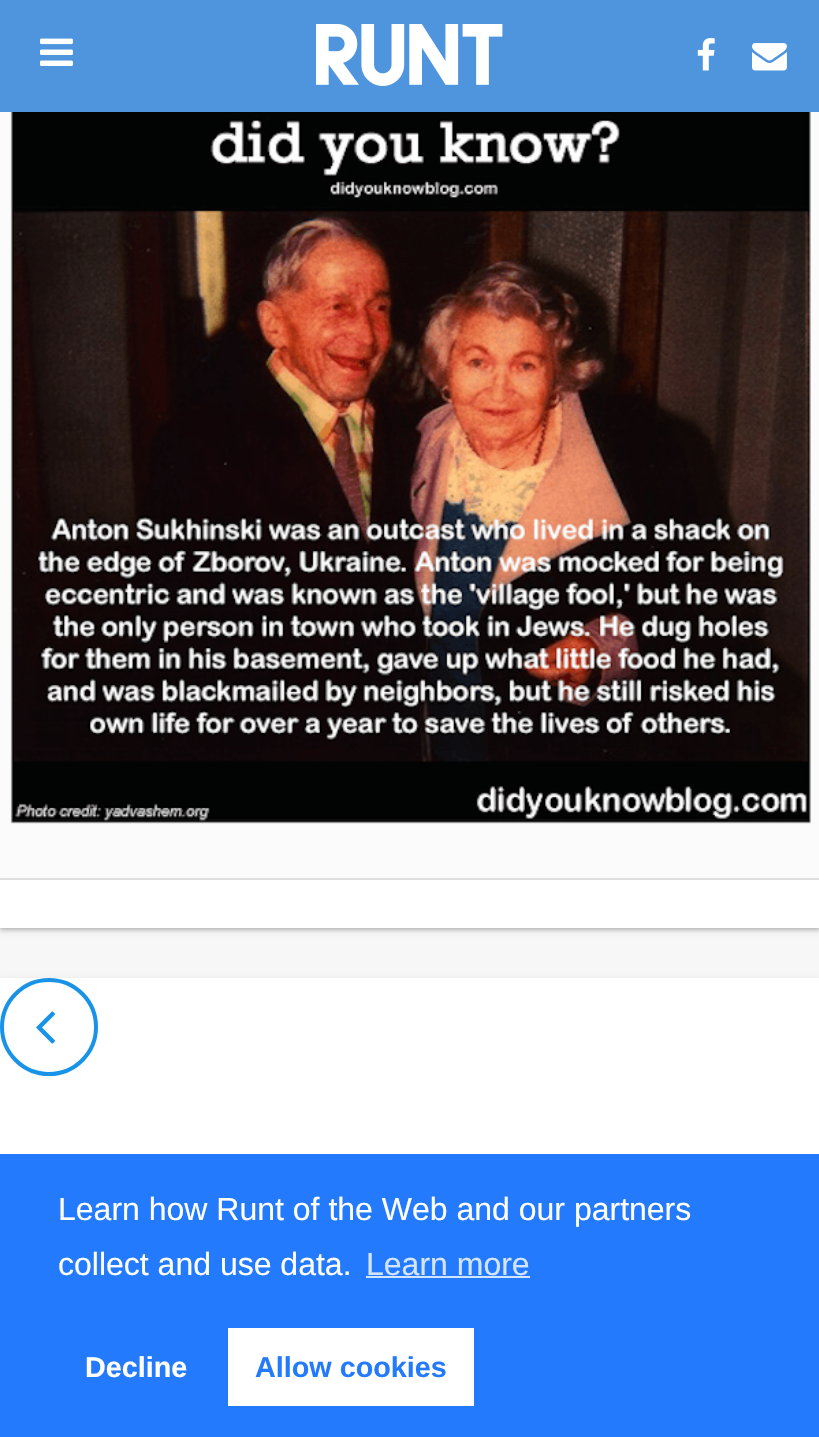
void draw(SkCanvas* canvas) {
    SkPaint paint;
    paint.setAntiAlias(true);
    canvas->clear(0xFFF7F7F7);
    paint.setColor(0x2E000000);
    paint.setMaskFilter(SkMaskFilter::MakeBlur(kNormal_SkBlurStyle, 2));
    canvas->drawRect(SkRect::MakeXYWH(0, -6, 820, 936), paint);
    paint.setMaskFilter(nullptr);
    paint.setColor(0x1F000000);
    paint.setMaskFilter(SkMaskFilter::MakeBlur(kNormal_SkBlurStyle, 3));
    canvas->drawRect(SkRect::MakeXYWH(0, -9, 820, 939), paint);
    paint.setMaskFilter(nullptr);
    paint.setColor(0xFFFFFFFF);
    canvas->drawRect(SkRect::MakeXYWH(0, 880, 819, 48), paint);
    paint.setColor(0xFFFBFBFB);
    canvas->drawRect(SkRect::MakeXYWH(0, 112, 819, 766), paint);
    canvas->drawImageRect(SkImages::DeferredFromEncodedData(SkData::MakeFromFileName("img1.png")), SkRect::MakeXYWH(10, 112, 801, 712), SkSamplingOptions());
    paint.setColor(0xFFDEDEDE);
    canvas->drawRect(SkRect::MakeXYWH(0, 878, 819, 2), paint);
    paint.setColor(0x1F000000);
    paint.setMaskFilter(SkMaskFilter::MakeBlur(kNormal_SkBlurStyle, 3));
    canvas->drawRect(SkRect::MakeXYWH(0, 980, 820, 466), paint);
    paint.setMaskFilter(nullptr);
    paint.setColor(0xFFFFFFFF);
    canvas->drawRect(SkRect::MakeXYWH(0, 978, 819, 176), paint);
    paint.setStyle(SkPaint::kStroke_Style);
    paint.setStrokeWidth(4);
    paint.setColor(0xFF1893E7);
    canvas->drawCircle(49, 1027, 47, paint);
    canvas->drawImageRect(SkImages::DeferredFromEncodedData(SkData::MakeFromFileName("img2.png")), SkRect::MakeXYWH(36, 1011, 19, 33), SkSamplingOptions());
    paint.setStyle(SkPaint::kFill_Style);
    paint.setColor(0xFF4F95DE);
    canvas->drawRect(SkRect::MakeXYWH(0, 0, 819, 112), paint);
    canvas->drawImageRect(SkImages::DeferredFromEncodedData(SkData::MakeFromFileName("img3.png")), SkRect::MakeXYWH(40, 38, 33, 28), SkSamplingOptions());
    canvas->drawImageRect(SkImages::DeferredFromEncodedData(SkData::MakeFromFileName("img4.png")), SkRect::MakeXYWH(316, 24, 187, 62), SkSamplingOptions());
    canvas->drawImageRect(SkImages::DeferredFromEncodedData(SkData::MakeFromFileName("img5.png")), SkRect::MakeXYWH(697, 38, 18, 33), SkSamplingOptions());
    canvas->drawImageRect(SkImages::DeferredFromEncodedData(SkData::MakeFromFileName("img6.png")), SkRect::MakeXYWH(752, 43, 35, 28), SkSamplingOptions());
    paint.setColor(0xFF237AFC);
    canvas->drawRect(SkRect::MakeXYWH(0, 1154, 819, 283), paint);
    SkFont font1(fontMgr->matchFamilyStyle("Liberation Sans", SkFontStyle::Normal()), 32);
    font1.setSubpixel(true);
    paint.setColor(0xFFFFFFFF);
    canvas->drawString("Learn how Runt of the Web and our partners", 58, 1220, font1, paint);
    canvas->drawString("collect and use data.", 58, 1275, font1, paint);
    paint.setColor(0xFFD3E4FE);
    canvas->drawString("Learn more", 366, 1275, font1, paint);
    canvas->drawRect(SkRect::MakeXYWH(366, 1276, 164, 2), paint);
    SkFont font2(fontMgr->matchFamilyStyle("Liberation Sans", SkFontStyle::Bold()), 28.75f);
    font2.setSubpixel(true);
    paint.setColor(0xFFFFFFFF);
    canvas->drawString("Decline", 85, 1377, font2, paint);
    canvas->drawRect(SkRect::MakeXYWH(228, 1328, 246, 78), paint);
    paint.setColor(0xFF237AFC);
    canvas->drawString("Allow cookies", 255, 1377, font2, paint);
}
